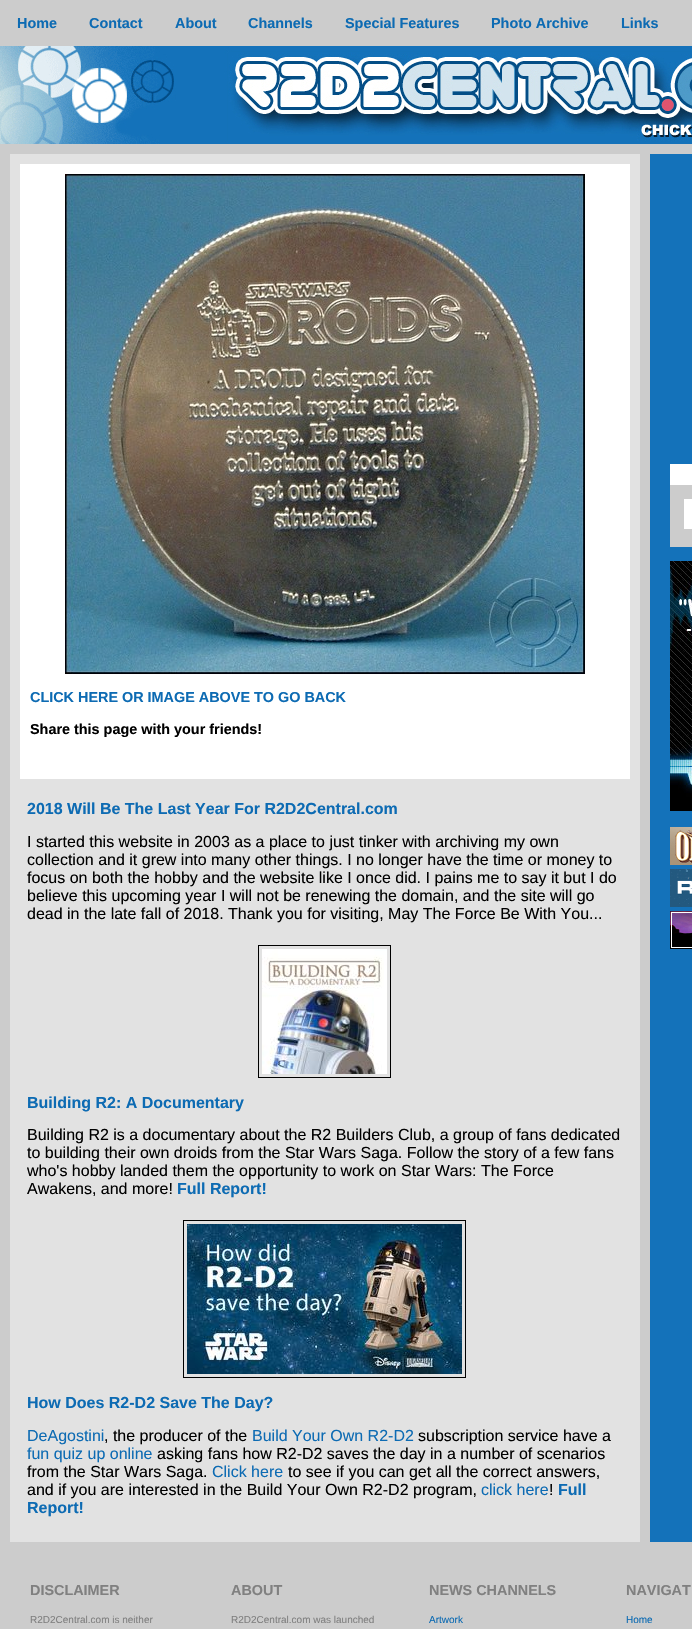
void draw(SkCanvas* canvas) {
    SkPaint paint;
    paint.setAntiAlias(true);
    canvas->clear(0xFFCCCCCC);
    SkFont font1(fontMgr->matchFamilyStyle("Liberation Sans", SkFontStyle::Bold()), 14.4f);
    font1.setSubpixel(true);
    paint.setColor(0xFF0D6BB3);
    canvas->drawString("Home", 17, 28, font1, paint);
    canvas->drawString("Contact", 89, 28, font1, paint);
    canvas->drawString("About", 175, 28, font1, paint);
    canvas->drawString("Channels", 248, 28, font1, paint);
    canvas->drawString("Special Features", 345, 28, font1, paint);
    canvas->drawString("Photo Archive", 491, 28, font1, paint);
    canvas->drawString("Links", 621, 28, font1, paint);
    canvas->drawImageRect(SkImages::DeferredFromEncodedData(SkData::MakeFromFileName("img1.png")), SkRect::MakeXYWH(0, 46, 692, 98), SkSamplingOptions());
    paint.setColor(0xFFE2E2E2);
    canvas->drawRect(SkRect::MakeXYWH(10, 154, 630, 1388), paint);
    paint.setColor(0xFFFFFFFF);
    canvas->drawRect(SkRect::MakeXYWH(20, 164, 610, 615), paint);
    canvas->drawImageRect(SkImages::DeferredFromEncodedData(SkData::MakeFromFileName("img2.png")), SkRect::MakeXYWH(65, 174, 520, 500), SkSamplingOptions());
    paint.setColor(0xFF0D6BB3);
    canvas->drawString("CLICK HERE OR IMAGE ABOVE TO GO BACK", 30, 702, font1, paint);
    paint.setColor(0xFF000000);
    canvas->drawString("Share this page with your friends!", 30, 734, font1, paint);
    SkFont font2(fontMgr->matchFamilyStyle("Liberation Sans", SkFontStyle::Bold()), 16);
    font2.setSubpixel(true);
    paint.setColor(0xFF0D6BB3);
    canvas->drawString("2018 Will Be The Last Year For R2D2Central.com", 27, 814, font2, paint);
    SkFont font3(fontMgr->matchFamilyStyle("Liberation Sans", SkFontStyle::Normal()), 16);
    font3.setSubpixel(true);
    paint.setColor(0xFF000000);
    canvas->drawString("I started this website in 2003 as a place to just tinker with archiving my own", 27, 847, font3, paint);
    canvas->drawString("collection and it grew into many other things. I no longer have the time or money to", 27, 865, font3, paint);
    canvas->drawString("focus on both the hobby and the website like I once did. I pains me to say it but I do", 27, 883, font3, paint);
    canvas->drawString("believe this upcoming year I will not be renewing the domain, and the site will go", 27, 901, font3, paint);
    canvas->drawString("dead in the late fall of 2018. Thank you for visiting, May The Force Be With You...", 27, 919, font3, paint);
    paint.setStyle(SkPaint::kStroke_Style);
    paint.setStrokeWidth(1);
    canvas->drawRect(SkRect::MakeXYWH(258.5f, 945.5f, 132, 132), paint);
    canvas->drawImageRect(SkImages::DeferredFromEncodedData(SkData::MakeFromFileName("img3.png")), SkRect::MakeXYWH(262, 949, 125, 125), SkSamplingOptions());
    paint.setStyle(SkPaint::kFill_Style);
    paint.setColor(0xFF0D6BB3);
    canvas->drawString("Building R2: A Documentary", 27, 1108, font2, paint);
    paint.setColor(0xFF000000);
    canvas->drawString("Building R2 is a documentary about the R2 Builders Club, a group of fans dedicated", 27, 1140, font3, paint);
    canvas->drawString("to building their own droids from the Star Wars Saga. Follow the story of a few fans", 27, 1158, font3, paint);
    canvas->drawString("who's hobby landed them the opportunity to work on Star Wars: The Force", 27, 1176, font3, paint);
    canvas->drawString("Awakens, and more!", 27, 1194, font3, paint);
    paint.setColor(0xFF0D6BB3);
    canvas->drawString("Full Report!", 177, 1194, font2, paint);
    paint.setStyle(SkPaint::kStroke_Style);
    paint.setColor(0xFF000000);
    canvas->drawRect(SkRect::MakeXYWH(183.5f, 1220.5f, 282, 157), paint);
    canvas->drawImageRect(SkImages::DeferredFromEncodedData(SkData::MakeFromFileName("img4.png")), SkRect::MakeXYWH(187, 1224, 275, 150), SkSamplingOptions());
    paint.setStyle(SkPaint::kFill_Style);
    paint.setColor(0xFF0D6BB3);
    canvas->drawString("How Does R2-D2 Save The Day?", 27, 1408, font2, paint);
    canvas->drawString("DeAgostini", 27, 1441, font3, paint);
    paint.setColor(0xFF000000);
    canvas->drawString(", the producer of the", 104, 1441, font3, paint);
    paint.setColor(0xFF0D6BB3);
    canvas->drawString("Build Your Own R2-D2", 252, 1441, font3, paint);
    paint.setColor(0xFF000000);
    canvas->drawString("subscription service have a", 418, 1441, font3, paint);
    paint.setColor(0xFF0D6BB3);
    canvas->drawString("fun quiz up online", 27, 1459, font3, paint);
    paint.setColor(0xFF000000);
    canvas->drawString("asking fans how R2-D2 saves the day in a number of scenarios", 157, 1459, font3, paint);
    canvas->drawString("from the Star Wars Saga.", 27, 1477, font3, paint);
    paint.setColor(0xFF0D6BB3);
    canvas->drawString("Click here", 212, 1477, font3, paint);
    paint.setColor(0xFF000000);
    canvas->drawString("to see if you can get all the correct answers,", 288, 1477, font3, paint);
    canvas->drawString("and if you are interested in the Build Your Own R2-D2 program,", 27, 1495, font3, paint);
    paint.setColor(0xFF0D6BB3);
    canvas->drawString("click here", 481, 1495, font3, paint);
    paint.setColor(0xFF000000);
    canvas->drawString("!", 549, 1495, font3, paint);
    paint.setColor(0xFF0D6BB3);
    canvas->drawString("Full", 558, 1495, font2, paint);
    canvas->drawString("Report!", 27, 1513, font2, paint);
    paint.setColor(0xFF1472BA);
    canvas->drawRect(SkRect::MakeXYWH(650, 154, 42, 1388), paint);
    paint.setColor(0xFFFFFFFF);
    canvas->drawRect(SkRect::MakeXYWH(670, 464, 22, 21), paint);
    paint.setColor(0xFFCCCCCC);
    canvas->drawRect(SkRect::MakeXYWH(670, 485, 22, 62), paint);
    paint.setColor(0xFFFFFFFF);
    canvas->drawRect(SkRect::MakeXYWH(684, 499, 8, 30), paint);
    canvas->drawImageRect(SkImages::DeferredFromEncodedData(SkData::MakeFromFileName("img5.png")), SkRect::MakeXYWH(670, 561, 22, 250), SkSamplingOptions());
    canvas->drawImageRect(SkImages::DeferredFromEncodedData(SkData::MakeFromFileName("img6.png")), SkRect::MakeXYWH(670, 827, 22, 38), SkSamplingOptions());
    canvas->drawImageRect(SkImages::DeferredFromEncodedData(SkData::MakeFromFileName("img7.png")), SkRect::MakeXYWH(670, 869, 22, 38), SkSamplingOptions());
    canvas->drawImageRect(SkImages::DeferredFromEncodedData(SkData::MakeFromFileName("img8.png")), SkRect::MakeXYWH(670, 911, 22, 38), SkSamplingOptions());
    paint.setColor(0xFF808080);
    canvas->drawString("DISCLAIMER", 30, 1595, font1, paint);
    SkFont font4(fontMgr->matchFamilyStyle("Liberation Sans", SkFontStyle::Normal()), 10);
    font4.setSubpixel(true);
    canvas->drawString("R2D2Central.com is neither", 30, 1623, font4, paint);
    canvas->drawString("ABOUT", 231, 1595, font1, paint);
    canvas->drawString("R2D2Central.com was launched", 231, 1623, font4, paint);
    canvas->drawString("NEWS CHANNELS", 429, 1595, font1, paint);
    paint.setColor(0xFF0D6BB3);
    canvas->drawString("Artwork", 429, 1623, font4, paint);
    paint.setColor(0xFF808080);
    canvas->drawString("NAVIGAT", 626, 1595, font1, paint);
    paint.setColor(0xFF0D6BB3);
    canvas->drawString("Home", 626, 1623, font4, paint);
}
